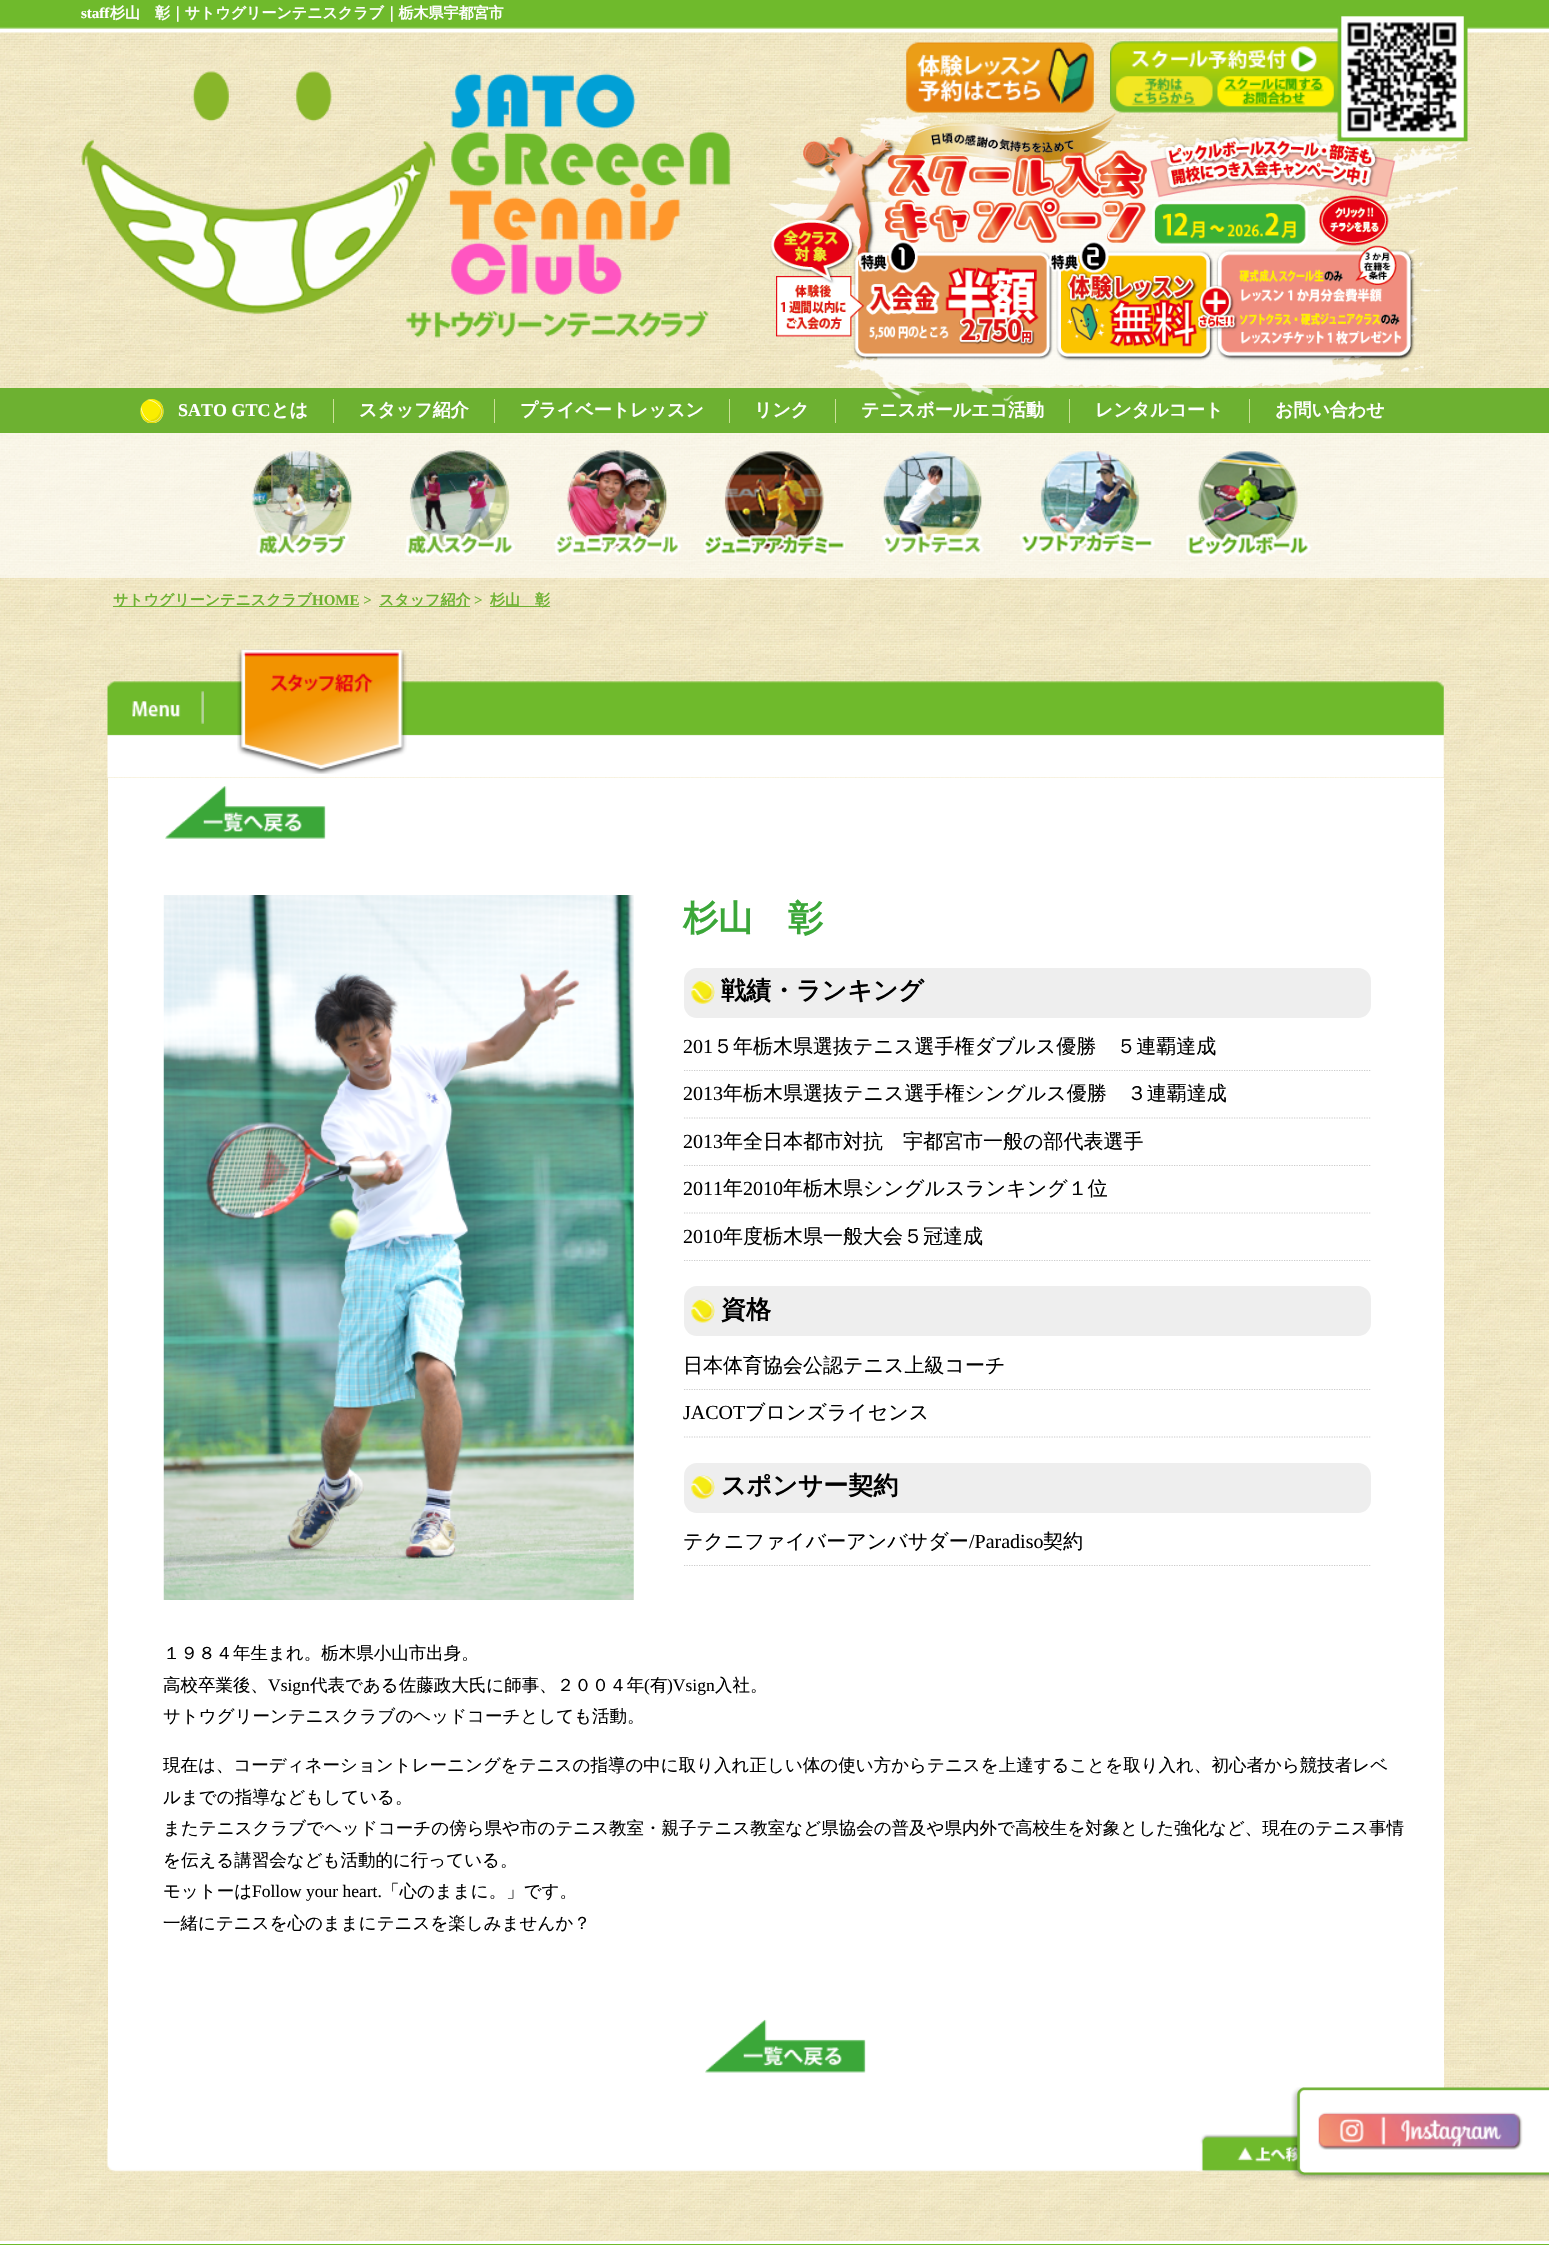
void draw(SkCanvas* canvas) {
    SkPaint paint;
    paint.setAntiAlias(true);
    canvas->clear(0xFFFFFFFF);
    canvas->drawImageRect(SkImages::DeferredFromEncodedData(SkData::MakeFromFileName("img1.png")), SkRect::MakeXYWH(0, 32, 1549, 2209), SkSamplingOptions());
    canvas->drawImageRect(SkImages::DeferredFromEncodedData(SkData::MakeFromFileName("img2.png")), SkRect::MakeXYWH(0, 0, 1549, 33), SkSamplingOptions());
    SkFont font1(fontMgr->matchFamilyStyle("Liberation Serif", SkFontStyle::Bold()), 15);
    font1.setSubpixel(true);
    paint.setColor(0xFFFFFFFF);
    canvas->drawString("staff", 81, 18, font1, paint);
    SkFont font2(fontMgr->matchFamilyStyle("WenQuanYi Zen Hei", SkFontStyle::Bold()), 15);
    font2.setSubpixel(true);
    canvas->drawString("杉山　彰｜サトウグリーンテニスクラブ｜栃木県宇都宮市", 110, 18, font2, paint);
    canvas->drawImageRect(SkImages::DeferredFromEncodedData(SkData::MakeFromFileName("img3.png")), SkRect::MakeXYWH(81, 71, 650, 267), SkSamplingOptions());
    canvas->drawImageRect(SkImages::DeferredFromEncodedData(SkData::MakeFromFileName("img4.png")), SkRect::MakeXYWH(906, 42, 188, 71), SkSamplingOptions());
    paint.setColor(0xFF6DB131);
    canvas->drawRect(SkRect::MakeXYWH(0, 388, 1549, 45), paint);
    paint.setColor(0xFFCCE198);
    canvas->drawRect(SkRect::MakeXYWH(835, 399, 1, 24), paint);
    canvas->drawRect(SkRect::MakeXYWH(1069, 399, 1, 24), paint);
    SkFont font3(fontMgr->matchFamilyStyle("WenQuanYi Zen Hei", SkFontStyle::Bold()), 18);
    font3.setSubpixel(true);
    paint.setColor(0xFFFFFFFF);
    canvas->drawString("テニスボールエコ活動", 861, 416, font3, paint);
    paint.setColor(0xFFCCE198);
    canvas->drawRect(SkRect::MakeXYWH(1249, 399, 1, 24), paint);
    paint.setColor(0xFFFFFFFF);
    canvas->drawString("お問い合わせ", 1275, 416, font3, paint);
    canvas->drawImageRect(SkImages::DeferredFromEncodedData(SkData::MakeFromFileName("img8.png")), SkRect::MakeXYWH(768, 113, 707, 289), SkSamplingOptions());
    canvas->drawImageRect(SkImages::DeferredFromEncodedData(SkData::MakeFromFileName("img5.png")), SkRect::MakeXYWH(1110, 16, 358, 126), SkSamplingOptions());
    canvas->drawImageRect(SkImages::DeferredFromEncodedData(SkData::MakeFromFileName("img6.png")), SkRect::MakeXYWH(1116, 76, 97, 31), SkSamplingOptions());
    canvas->drawImageRect(SkImages::DeferredFromEncodedData(SkData::MakeFromFileName("img7.png")), SkRect::MakeXYWH(1217, 76, 117, 31), SkSamplingOptions());
    canvas->drawImageRect(SkImages::DeferredFromEncodedData(SkData::MakeFromFileName("img9.png")), SkRect::MakeXYWH(140, 399, 24, 24), SkSamplingOptions());
    paint.setColor(0xFFCCE198);
    canvas->drawRect(SkRect::MakeXYWH(333, 399, 1, 24), paint);
    SkFont font4(fontMgr->matchFamilyStyle("Liberation Serif", SkFontStyle::Bold()), 18);
    font4.setSubpixel(true);
    paint.setColor(0xFFFFFFFF);
    canvas->drawString("SATO GTC", 178, 416, font4, paint);
    canvas->drawString("とは", 271, 416, font3, paint);
    paint.setColor(0xFFCCE198);
    canvas->drawRect(SkRect::MakeXYWH(494, 399, 1, 24), paint);
    paint.setColor(0xFFFFFFFF);
    canvas->drawString("スタッフ紹介", 359, 416, font3, paint);
    paint.setColor(0xFFCCE198);
    canvas->drawRect(SkRect::MakeXYWH(729, 399, 1, 24), paint);
    paint.setColor(0xFFFFFFFF);
    canvas->drawString("プライベートレッスン", 520, 416, font3, paint);
    canvas->drawString("リンク", 754, 416, font3, paint);
    canvas->drawString("レンタルコート", 1095, 416, font3, paint);
    paint.setColor(0x99FFFFFF);
    canvas->drawRect(SkRect::MakeXYWH(0, 433, 1549, 145), paint);
    canvas->drawImageRect(SkImages::DeferredFromEncodedData(SkData::MakeFromFileName("img10.png")), SkRect::MakeXYWH(252, 450, 101, 108), SkSamplingOptions());
    canvas->drawImageRect(SkImages::DeferredFromEncodedData(SkData::MakeFromFileName("img11.png")), SkRect::MakeXYWH(405, 450, 110, 108), SkSamplingOptions());
    canvas->drawImageRect(SkImages::DeferredFromEncodedData(SkData::MakeFromFileName("img12.png")), SkRect::MakeXYWH(553, 449, 129, 108), SkSamplingOptions());
    canvas->drawImageRect(SkImages::DeferredFromEncodedData(SkData::MakeFromFileName("img13.png")), SkRect::MakeXYWH(702, 451, 143, 106), SkSamplingOptions());
    canvas->drawImageRect(SkImages::DeferredFromEncodedData(SkData::MakeFromFileName("img14.png")), SkRect::MakeXYWH(881, 451, 103, 105), SkSamplingOptions());
    canvas->drawImageRect(SkImages::DeferredFromEncodedData(SkData::MakeFromFileName("img15.png")), SkRect::MakeXYWH(1019, 451, 136, 104), SkSamplingOptions());
    canvas->drawImageRect(SkImages::DeferredFromEncodedData(SkData::MakeFromFileName("img16.png")), SkRect::MakeXYWH(1186, 451, 126, 107), SkSamplingOptions());
    paint.setColor(0xFF6DB131);
    canvas->drawRect(SkRect::MakeXYWH(113, 606, 246, 1), paint);
    canvas->drawString("サトウグリーンテニスクラブ", 113, 605, font2, paint);
    canvas->drawString("HOME >", 312, 605, font1, paint);
    canvas->drawRect(SkRect::MakeXYWH(379, 606, 91, 1), paint);
    canvas->drawString("スタッフ紹介", 379, 605, font2, paint);
    canvas->drawString(">", 474, 605, font1, paint);
    canvas->drawRect(SkRect::MakeXYWH(490, 606, 60, 1), paint);
    canvas->drawString("杉山　彰", 490, 605, font2, paint);
    canvas->drawImageRect(SkImages::DeferredFromEncodedData(SkData::MakeFromFileName("img17.png")), SkRect::MakeXYWH(107, 681, 1337, 97), SkSamplingOptions());
    canvas->drawImageRect(SkImages::DeferredFromEncodedData(SkData::MakeFromFileName("img18.png")), SkRect::MakeXYWH(237, 649, 170, 125), SkSamplingOptions());
    paint.setColor(0xFFFFFFFF);
    canvas->drawRect(SkRect::MakeXYWH(108, 778, 1336, 1351), paint);
    canvas->drawImageRect(SkImages::DeferredFromEncodedData(SkData::MakeFromFileName("img19.png")), SkRect::MakeXYWH(165, 786, 161, 53), SkSamplingOptions());
    canvas->drawImageRect(SkImages::DeferredFromEncodedData(SkData::MakeFromFileName("img20.png")), SkRect::MakeXYWH(163, 895, 471, 705), SkSamplingOptions());
    SkFont font5(fontMgr->matchFamilyStyle("WenQuanYi Zen Hei", SkFontStyle::Bold()), 35);
    font5.setSubpixel(true);
    paint.setColor(0xFF3BA739);
    canvas->drawString("杉山　彰", 683, 930, font5, paint);
    paint.setColor(0xFFEEEEEE);
    canvas->drawRoundRect(SkRect::MakeXYWH(684, 968, 687, 50), 13, 13, paint);
    canvas->drawImageRect(SkImages::DeferredFromEncodedData(SkData::MakeFromFileName("img21.png")), SkRect::MakeXYWH(691, 980, 24, 24), SkSamplingOptions());
    SkFont font6(fontMgr->matchFamilyStyle("WenQuanYi Zen Hei", SkFontStyle::Bold()), 25);
    font6.setSubpixel(true);
    paint.setColor(0xFF000000);
    canvas->drawString("戦績・ランキング", 721, 999, font6, paint);
    paint.setStyle(SkPaint::kStroke_Style);
    paint.setStrokeWidth(1.2f);
    paint.setColor(0xFFCCCCCC);
    paint.setPathEffect(SkDashPathEffect::Make({{1.25f, 1.25f}}, 0));
    canvas->drawPath(SkPathBuilder().moveTo(684, 1070.5f).lineTo(1371, 1070.5f).detach(), paint);
    paint.setPathEffect(nullptr);
    SkFont font7(fontMgr->matchFamilyStyle("Liberation Serif", SkFontStyle::Normal()), 20);
    font7.setSubpixel(true);
    paint.setStyle(SkPaint::kFill_Style);
    paint.setColor(0xFF000000);
    canvas->drawString("201", 683, 1053, font7, paint);
    SkFont font8(fontMgr->matchFamilyStyle("WenQuanYi Zen Hei", SkFontStyle(500, SkFontStyle::kNormal_Width, SkFontStyle::kUpright_Slant)), 20);
    font8.setSubpixel(true);
    canvas->drawString("５年栃木県選抜テニス選手権ダブルス優勝　５連覇達成", 713, 1053, font8, paint);
    paint.setStyle(SkPaint::kStroke_Style);
    paint.setColor(0xFFCCCCCC);
    paint.setPathEffect(SkDashPathEffect::Make({{1.25f, 1.25f}}, 0));
    canvas->drawPath(SkPathBuilder().moveTo(684, 1118).lineTo(1371, 1118).detach(), paint);
    paint.setPathEffect(nullptr);
    paint.setStyle(SkPaint::kFill_Style);
    paint.setColor(0xFF000000);
    canvas->drawString("2013", 683, 1100, font7, paint);
    canvas->drawString("年栃木県選抜テニス選手権シングルス優勝　３連覇達成", 723, 1100, font8, paint);
    paint.setStyle(SkPaint::kStroke_Style);
    paint.setColor(0xFFCCCCCC);
    paint.setPathEffect(SkDashPathEffect::Make({{1.25f, 1.25f}}, 0));
    canvas->drawPath(SkPathBuilder().moveTo(684, 1165.5f).lineTo(1371, 1165.5f).detach(), paint);
    paint.setPathEffect(nullptr);
    paint.setStyle(SkPaint::kFill_Style);
    paint.setColor(0xFF000000);
    canvas->drawString("2013", 683, 1148, font7, paint);
    canvas->drawString("年全日本都市対抗　宇都宮市一般の部代表選手", 723, 1148, font8, paint);
    paint.setStyle(SkPaint::kStroke_Style);
    paint.setColor(0xFFCCCCCC);
    paint.setPathEffect(SkDashPathEffect::Make({{1.25f, 1.25f}}, 0));
    canvas->drawPath(SkPathBuilder().moveTo(684, 1213).lineTo(1371, 1213).detach(), paint);
    paint.setPathEffect(nullptr);
    paint.setStyle(SkPaint::kFill_Style);
    paint.setColor(0xFF000000);
    canvas->drawString("2011", 683, 1195, font7, paint);
    canvas->drawString("年", 723, 1195, font8, paint);
    canvas->drawString("2010", 743, 1195, font7, paint);
    canvas->drawString("年栃木県シングルスランキング１位", 783, 1195, font8, paint);
    paint.setStyle(SkPaint::kStroke_Style);
    paint.setColor(0xFFCCCCCC);
    paint.setPathEffect(SkDashPathEffect::Make({{1.25f, 1.25f}}, 0));
    canvas->drawPath(SkPathBuilder().moveTo(684, 1260.5f).lineTo(1371, 1260.5f).detach(), paint);
    paint.setPathEffect(nullptr);
    paint.setStyle(SkPaint::kFill_Style);
    paint.setColor(0xFF000000);
    canvas->drawString("2010", 683, 1243, font7, paint);
    canvas->drawString("年度栃木県一般大会５冠達成", 723, 1243, font8, paint);
    paint.setColor(0xFFEEEEEE);
    canvas->drawRoundRect(SkRect::MakeXYWH(684, 1286, 687, 50), 13, 13, paint);
    canvas->drawImageRect(SkImages::DeferredFromEncodedData(SkData::MakeFromFileName("img22.png")), SkRect::MakeXYWH(691, 1298, 24, 25), SkSamplingOptions());
    paint.setColor(0xFF000000);
    canvas->drawString("資格", 721, 1318, font6, paint);
    paint.setStyle(SkPaint::kStroke_Style);
    paint.setColor(0xFFCCCCCC);
    paint.setPathEffect(SkDashPathEffect::Make({{1.25f, 1.25f}}, 0));
    canvas->drawPath(SkPathBuilder().moveTo(684, 1389.5f).lineTo(1371, 1389.5f).detach(), paint);
    paint.setPathEffect(nullptr);
    paint.setStyle(SkPaint::kFill_Style);
    paint.setColor(0xFF000000);
    canvas->drawString("日本体育協会公認テニス上級コーチ", 683, 1372, font8, paint);
    paint.setStyle(SkPaint::kStroke_Style);
    paint.setColor(0xFFCCCCCC);
    paint.setPathEffect(SkDashPathEffect::Make({{1.25f, 1.25f}}, 0));
    canvas->drawPath(SkPathBuilder().moveTo(684, 1437).lineTo(1371, 1437).detach(), paint);
    paint.setPathEffect(nullptr);
    paint.setStyle(SkPaint::kFill_Style);
    paint.setColor(0xFF000000);
    canvas->drawString("JACOT", 683, 1419, font7, paint);
    canvas->drawString("ブロンズライセンス", 745, 1419, font8, paint);
    paint.setColor(0xFFEEEEEE);
    canvas->drawRoundRect(SkRect::MakeXYWH(684, 1463, 687, 50), 13, 13, paint);
    canvas->drawImageRect(SkImages::DeferredFromEncodedData(SkData::MakeFromFileName("img21.png")), SkRect::MakeXYWH(691, 1475, 24, 24), SkSamplingOptions());
    paint.setColor(0xFF000000);
    canvas->drawString("スポンサー契約", 721, 1494, font6, paint);
    paint.setStyle(SkPaint::kStroke_Style);
    paint.setColor(0xFFCCCCCC);
    paint.setPathEffect(SkDashPathEffect::Make({{1.25f, 1.25f}}, 0));
    canvas->drawPath(SkPathBuilder().moveTo(684, 1565.5f).lineTo(1371, 1565.5f).detach(), paint);
    paint.setPathEffect(nullptr);
    paint.setStyle(SkPaint::kFill_Style);
    paint.setColor(0xFF000000);
    canvas->drawString("テクニファイバーアンバサダー", 683, 1548, font8, paint);
    canvas->drawString("/Paradiso", 969, 1548, font7, paint);
    canvas->drawString("契約", 1043, 1548, font8, paint);
    SkFont font9(fontMgr->matchFamilyStyle("WenQuanYi Zen Hei", SkFontStyle(500, SkFontStyle::kNormal_Width, SkFontStyle::kUpright_Slant)), 17.5f);
    font9.setSubpixel(true);
    canvas->drawString("１９８４年生まれ。栃木県小山市出身。", 163, 1659, font9, paint);
    canvas->drawString("高校卒業後、", 163, 1691, font9, paint);
    SkFont font10(fontMgr->matchFamilyStyle("Liberation Serif", SkFontStyle::Normal()), 17.5f);
    font10.setSubpixel(true);
    canvas->drawString("Vsign", 268, 1691, font10, paint);
    canvas->drawString("代表である佐藤政大氏に師事、２００４年", 310, 1691, font9, paint);
    canvas->drawString("(", 644, 1691, font10, paint);
    canvas->drawString("有", 650, 1691, font9, paint);
    canvas->drawString(")Vsign", 667, 1691, font10, paint);
    canvas->drawString("入社。", 715, 1691, font9, paint);
    canvas->drawString("サトウグリーンテニスクラブのヘッドコーチとしても活動。", 163, 1722, font9, paint);
    canvas->drawString("現在は、コーディネーショントレーニングをテニスの指導の中に取り入れ正しい体の使い方からテニスを上達することを取り入れ、初心者から競技者レベ", 163, 1771, font9, paint);
    canvas->drawString("ルまでの指導などもしている。", 163, 1803, font9, paint);
    canvas->drawString("またテニスクラブでヘッドコーチの傍ら県や市のテニス教室・親子テニス教室など県協会の普及や県内外で高校生を対象とした強化など、現在のテニス事情", 163, 1834, font9, paint);
    canvas->drawString("を伝える講習会なども活動的に行っている。", 163, 1866, font9, paint);
    canvas->drawString("モットーは", 163, 1897, font9, paint);
    canvas->drawString("Follow your heart.", 252, 1897, font10, paint);
    canvas->drawString("「心のままに。」です。", 382, 1897, font9, paint);
    canvas->drawString("一緒にテニスを心のままにテニスを楽しみませんか？", 163, 1929, font9, paint);
    canvas->drawImageRect(SkImages::DeferredFromEncodedData(SkData::MakeFromFileName("img23.png")), SkRect::MakeXYWH(705, 2019, 161, 54), SkSamplingOptions());
    canvas->drawImageRect(SkImages::DeferredFromEncodedData(SkData::MakeFromFileName("img24.png")), SkRect::MakeXYWH(107, 2128, 1193, 44), SkSamplingOptions());
    canvas->drawImageRect(SkImages::DeferredFromEncodedData(SkData::MakeFromFileName("img25.png")), SkRect::MakeXYWH(1199, 2134, 101, 38), SkSamplingOptions());
    canvas->drawImageRect(SkImages::DeferredFromEncodedData(SkData::MakeFromFileName("img26.png")), SkRect::MakeXYWH(1291, 2087, 258, 94), SkSamplingOptions());
    canvas->drawImageRect(SkImages::DeferredFromEncodedData(SkData::MakeFromFileName("img27.png")), SkRect::MakeXYWH(1318, 2112, 205, 38), SkSamplingOptions());
    paint.setColor(0xFF6FBA2C);
    canvas->drawRect(SkRect::MakeXYWH(0, 2244, 1549, 1), paint);
}
